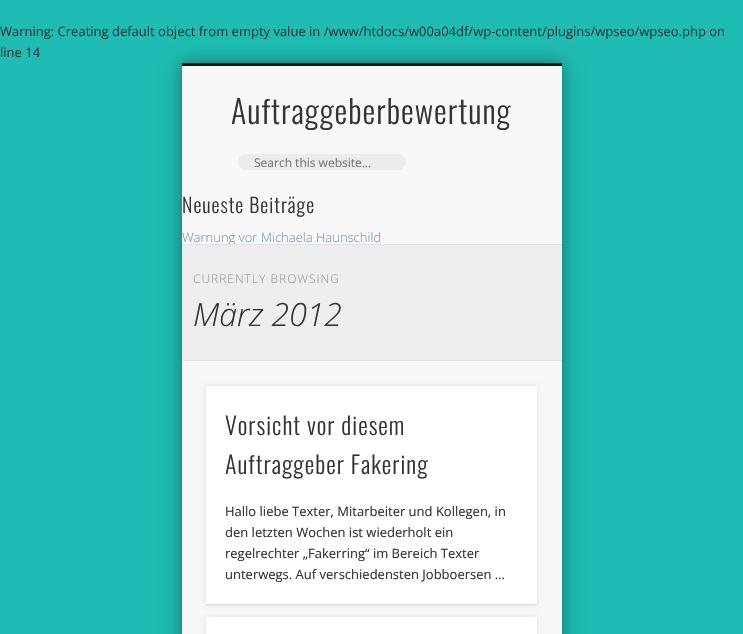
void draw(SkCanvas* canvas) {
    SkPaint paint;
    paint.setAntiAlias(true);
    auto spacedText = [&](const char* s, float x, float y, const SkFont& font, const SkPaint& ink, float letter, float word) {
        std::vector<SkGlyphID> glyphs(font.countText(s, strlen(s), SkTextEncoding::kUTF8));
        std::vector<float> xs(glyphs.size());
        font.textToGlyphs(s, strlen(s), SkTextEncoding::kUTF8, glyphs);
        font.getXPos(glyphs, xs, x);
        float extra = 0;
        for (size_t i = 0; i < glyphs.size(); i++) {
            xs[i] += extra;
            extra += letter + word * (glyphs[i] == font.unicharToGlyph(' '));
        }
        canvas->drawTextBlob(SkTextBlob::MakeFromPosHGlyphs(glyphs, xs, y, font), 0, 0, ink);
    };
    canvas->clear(0xFF1EBCB2);
    SkFont font1(fontMgr->matchFamilyStyle("Open Sans", SkFontStyle::Normal()), 13);
    font1.setSubpixel(true);
    paint.setColor(0xFF333333);
    canvas->drawString("Warning: Creating default object from empty value in /www/htdocs/w00a04df/wp-content/plugins/wpseo/wpseo.php on", 0, 36, font1, paint);
    canvas->drawString("line 14", 0, 57, font1, paint);
    paint.setColor(0x66000000);
    paint.setMaskFilter(SkMaskFilter::MakeBlur(kNormal_SkBlurStyle, 9));
    canvas->drawRect(SkRect::MakeXYWH(182, 63, 380, 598), paint);
    paint.setMaskFilter(nullptr);
    paint.setColor(0xFFF8F8F8);
    canvas->drawRect(SkRect::MakeXYWH(182, 66, 380, 568), paint);
    paint.setColor(0xFF111111);
    canvas->drawRect(SkRect::MakeXYWH(182, 63, 380, 3), paint);
    SkFont font2(fontMgr->matchFamilyStyle("Oswald", SkFontStyle(300, SkFontStyle::kNormal_Width, SkFontStyle::kUpright_Slant)), 32);
    font2.setSubpixel(true);
    paint.setColor(0xFF333333);
    spacedText("Auftraggeberbewertung", 231, 124, font2, paint, 1, 0);
    paint.setColor(0xFFECECEC);
    canvas->drawRoundRect(SkRect::MakeXYWH(238, 154, 168, 16), 8, 8, paint);
    SkFont font3(fontMgr->matchFamilyStyle("Open Sans", SkFontStyle::Normal()), 12);
    font3.setSubpixel(true);
    paint.setColor(0xFF757575);
    canvas->drawString("Search this website…", 254, 167, font3, paint);
    SkFont font4(fontMgr->matchFamilyStyle("Oswald", SkFontStyle(300, SkFontStyle::kNormal_Width, SkFontStyle::kUpright_Slant)), 20);
    font4.setSubpixel(true);
    paint.setColor(0xFF333333);
    spacedText("Neueste Beiträge", 182, 213, font4, paint, 1, 0);
    canvas->save();
    canvas->clipRect(SkRect::MakeXYWH(182, 220, 367, 24));
    SkFont font5(fontMgr->matchFamilyStyle("Open Sans", SkFontStyle(300, SkFontStyle::kNormal_Width, SkFontStyle::kUpright_Slant)), 13);
    font5.setSubpixel(true);
    paint.setColor(0xFF7597B9);
    canvas->drawString("Warnung vor Michaela Haunschild", 182, 242, font5, paint);
    canvas->restore();
    paint.setColor(0xFFEEEEEE);
    canvas->drawRect(SkRect::MakeXYWH(182, 245, 380, 115), paint);
    paint.setColor(0xFFE1E1E1);
    canvas->drawRect(SkRect::MakeXYWH(182, 244, 380, 1), paint);
    canvas->drawRect(SkRect::MakeXYWH(182, 360, 380, 1), paint);
    SkFont font6(fontMgr->matchFamilyStyle("Open Sans", SkFontStyle(300, SkFontStyle::kNormal_Width, SkFontStyle::kUpright_Slant)), 12);
    font6.setSubpixel(true);
    paint.setColor(0xFF999999);
    spacedText("CURRENTLY BROWSING", 193, 283, font6, paint, 1, 0);
    SkFont font7(fontMgr->matchFamilyStyle("Open Sans", SkFontStyle(300, SkFontStyle::kNormal_Width, SkFontStyle::kItalic_Slant)), 32);
    font7.setSubpixel(true);
    paint.setColor(0xFF333333);
    canvas->drawString("März 2012", 193, 326, font7, paint);
    paint.setColor(0x1A000000);
    paint.setMaskFilter(SkMaskFilter::MakeBlur(kNormal_SkBlurStyle, 2.5f));
    canvas->drawRect(SkRect::MakeXYWH(206, 386, 331, 219), paint);
    paint.setMaskFilter(nullptr);
    paint.setColor(0xFFFFFFFF);
    canvas->drawRect(SkRect::MakeXYWH(206, 386, 331, 218), paint);
    paint.setColor(0xFFDEDEDE);
    canvas->drawRect(SkRect::MakeXYWH(206, 604, 331, 1), paint);
    SkFont font8(fontMgr->matchFamilyStyle("Oswald", SkFontStyle(300, SkFontStyle::kNormal_Width, SkFontStyle::kUpright_Slant)), 24);
    font8.setSubpixel(true);
    paint.setColor(0xFF333333);
    spacedText("Vorsicht vor diesem", 225, 435, font8, paint, 1, 0);
    spacedText("Auftraggeber Fakering", 225, 474, font8, paint, 1, 0);
    canvas->drawString("Hallo liebe Texter, Mitarbeiter und Kollegen, in", 225, 516, font1, paint);
    canvas->drawString("den letzten Wochen ist wiederholt ein", 225, 537, font1, paint);
    canvas->drawString("regelrechter „Fakerring“ im Bereich Texter", 225, 558, font1, paint);
    canvas->drawString("unterwegs. Auf verschiedensten Jobboersen …", 225, 579, font1, paint);
    paint.setColor(0x1A000000);
    paint.setMaskFilter(SkMaskFilter::MakeBlur(kNormal_SkBlurStyle, 2.5f));
    canvas->drawRect(SkRect::MakeXYWH(206, 617, 331, 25), paint);
    paint.setMaskFilter(nullptr);
    paint.setColor(0xFFFFFFFF);
    canvas->drawRect(SkRect::MakeXYWH(206, 617, 331, 17), paint);
}
